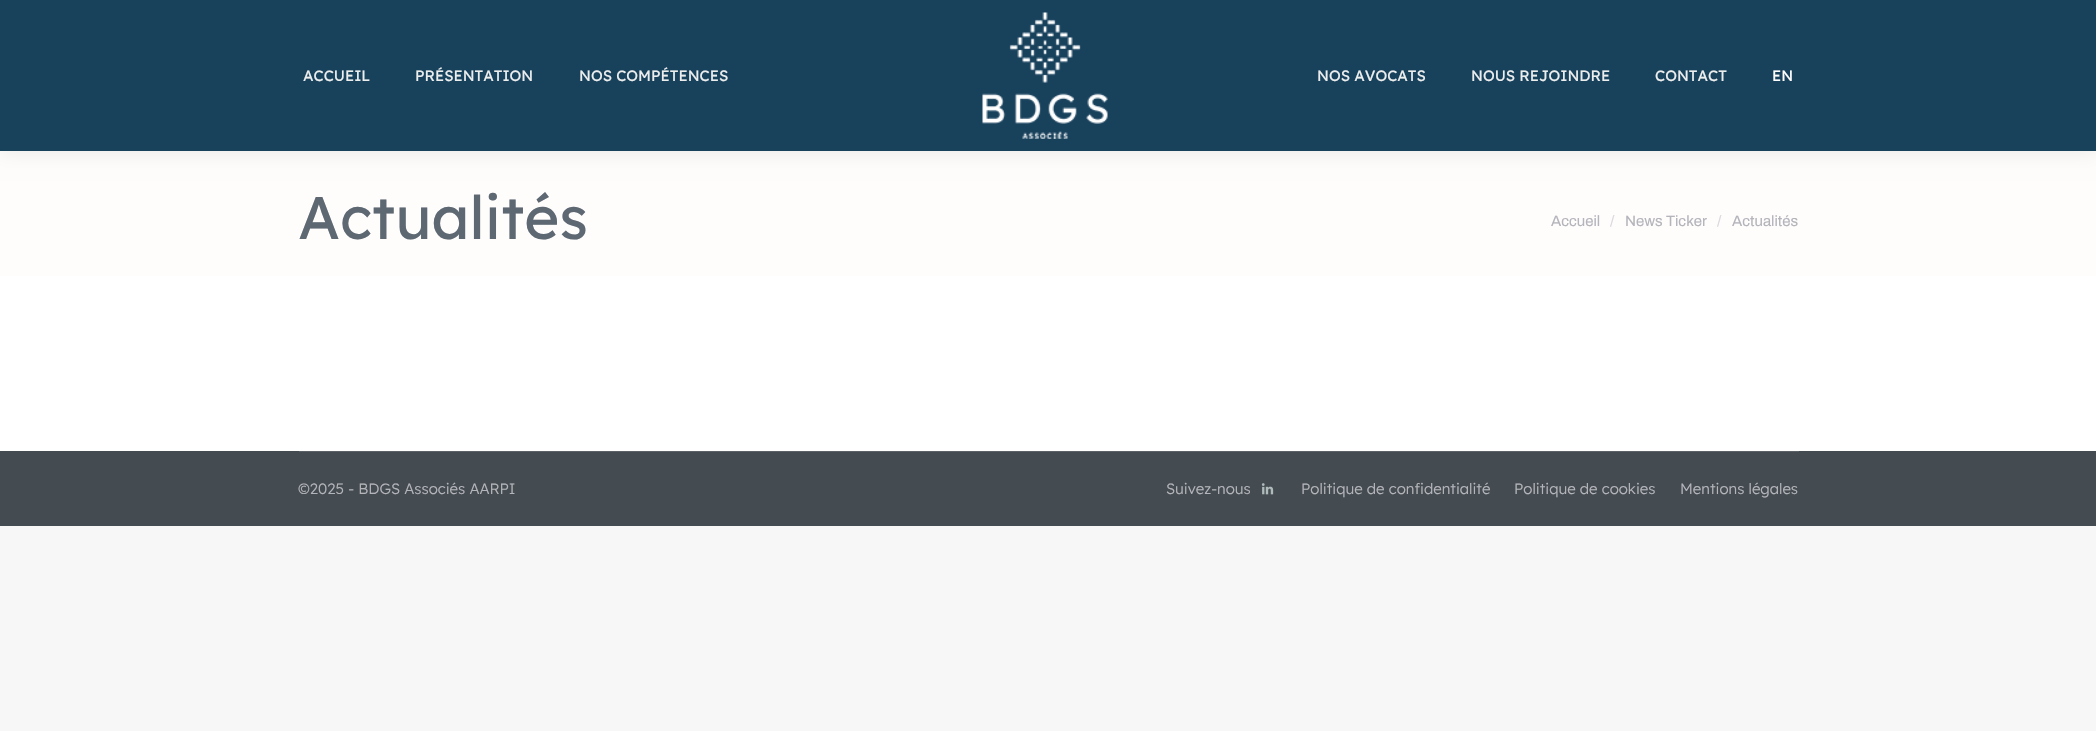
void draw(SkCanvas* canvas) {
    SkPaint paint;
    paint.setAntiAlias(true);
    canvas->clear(0xFFF7F7F7);
    paint.setColor(0xFFFFFFFF);
    canvas->drawRect(SkRect::MakeXYWH(0, 276, 2096, 175), paint);
    paint.setColor(0xFFFFFCFC);
    canvas->drawRect(SkRect::MakeXYWH(0, 151, 2096, 125), paint);
    paint.setColor(0x12000000);
    paint.setMaskFilter(SkMaskFilter::MakeBlur(kNormal_SkBlurStyle, 9.5f));
    canvas->drawRect(SkRect::MakeXYWH(-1, -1, 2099, 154), paint);
    paint.setMaskFilter(nullptr);
    paint.setColor(0xFF18415C);
    canvas->drawRect(SkRect::MakeXYWH(0, 0, 2096, 151), paint);
    SkFont font1(fontMgr->matchFamilyStyle("Lexend", SkFontStyle::Normal()), 15);
    font1.setSubpixel(true);
    paint.setColor(0xFFECEEEE);
    canvas->drawString("ACCUEIL", 303, 81, font1, paint);
    canvas->drawString("PRÉSENTATION", 415, 81, font1, paint);
    canvas->drawString("NOS COMPÉTENCES", 579, 81, font1, paint);
    canvas->drawImageRect(SkImages::DeferredFromEncodedData(SkData::MakeFromFileName("img1.png")), SkRect::MakeXYWH(982, 12, 126, 127), SkSamplingOptions());
    canvas->drawString("NOS AVOCATS", 1317, 81, font1, paint);
    canvas->drawString("NOUS REJOINDRE", 1471, 81, font1, paint);
    canvas->drawString("CONTACT", 1655, 81, font1, paint);
    paint.setColor(0xFFFFFFFF);
    canvas->drawString("EN", 1772, 81, font1, paint);
    SkFont font2(fontMgr->matchFamilyStyle("Lexend", SkFontStyle::Normal()), 60);
    font2.setSubpixel(true);
    paint.setColor(0xFF5D6872);
    canvas->drawString("Actualités", 298, 239, font2, paint);
    SkFont font3(fontMgr->matchFamilyStyle("Archivo", SkFontStyle::Normal()), 15);
    font3.setSubpixel(true);
    paint.setColor(0xFFB4B5BB);
    canvas->drawString("Accueil", 1551, 226, font3, paint);
    paint.setColor(0xFFDAD9DC);
    canvas->drawString("/", 1610, 226, font3, paint);
    paint.setColor(0xFFB4B5BB);
    canvas->drawString("News Ticker", 1625, 226, font3, paint);
    paint.setColor(0xFFDAD9DC);
    canvas->drawString("/", 1717, 226, font3, paint);
    paint.setColor(0xFFB4B5BB);
    canvas->drawString("Actualités", 1732, 226, font3, paint);
    paint.setColor(0xFF454C51);
    canvas->drawRect(SkRect::MakeXYWH(0, 451, 2096, 75), paint);
    paint.setColor(0xFF5B6166);
    canvas->drawRect(SkRect::MakeXYWH(299, 451, 1500, 1), paint);
    SkFont font4(fontMgr->matchFamilyStyle("Lexend", SkFontStyle(300, SkFontStyle::kNormal_Width, SkFontStyle::kUpright_Slant)), 15);
    font4.setSubpixel(true);
    paint.setColor(0xFFB4B5BB);
    canvas->drawString("©2025 - BDGS Associés AARPI", 298, 494, font4, paint);
    canvas->drawString("Suivez-nous", 1166, 494, font4, paint);
    canvas->drawImageRect(SkImages::DeferredFromEncodedData(SkData::MakeFromFileName("img2.png")), SkRect::MakeXYWH(1261, 483, 13, 12), SkSamplingOptions());
    canvas->drawString("Politique de confidentialité", 1301, 494, font4, paint);
    canvas->drawString("Politique de cookies", 1514, 494, font4, paint);
    canvas->drawString("Mentions légales", 1680, 494, font4, paint);
}
